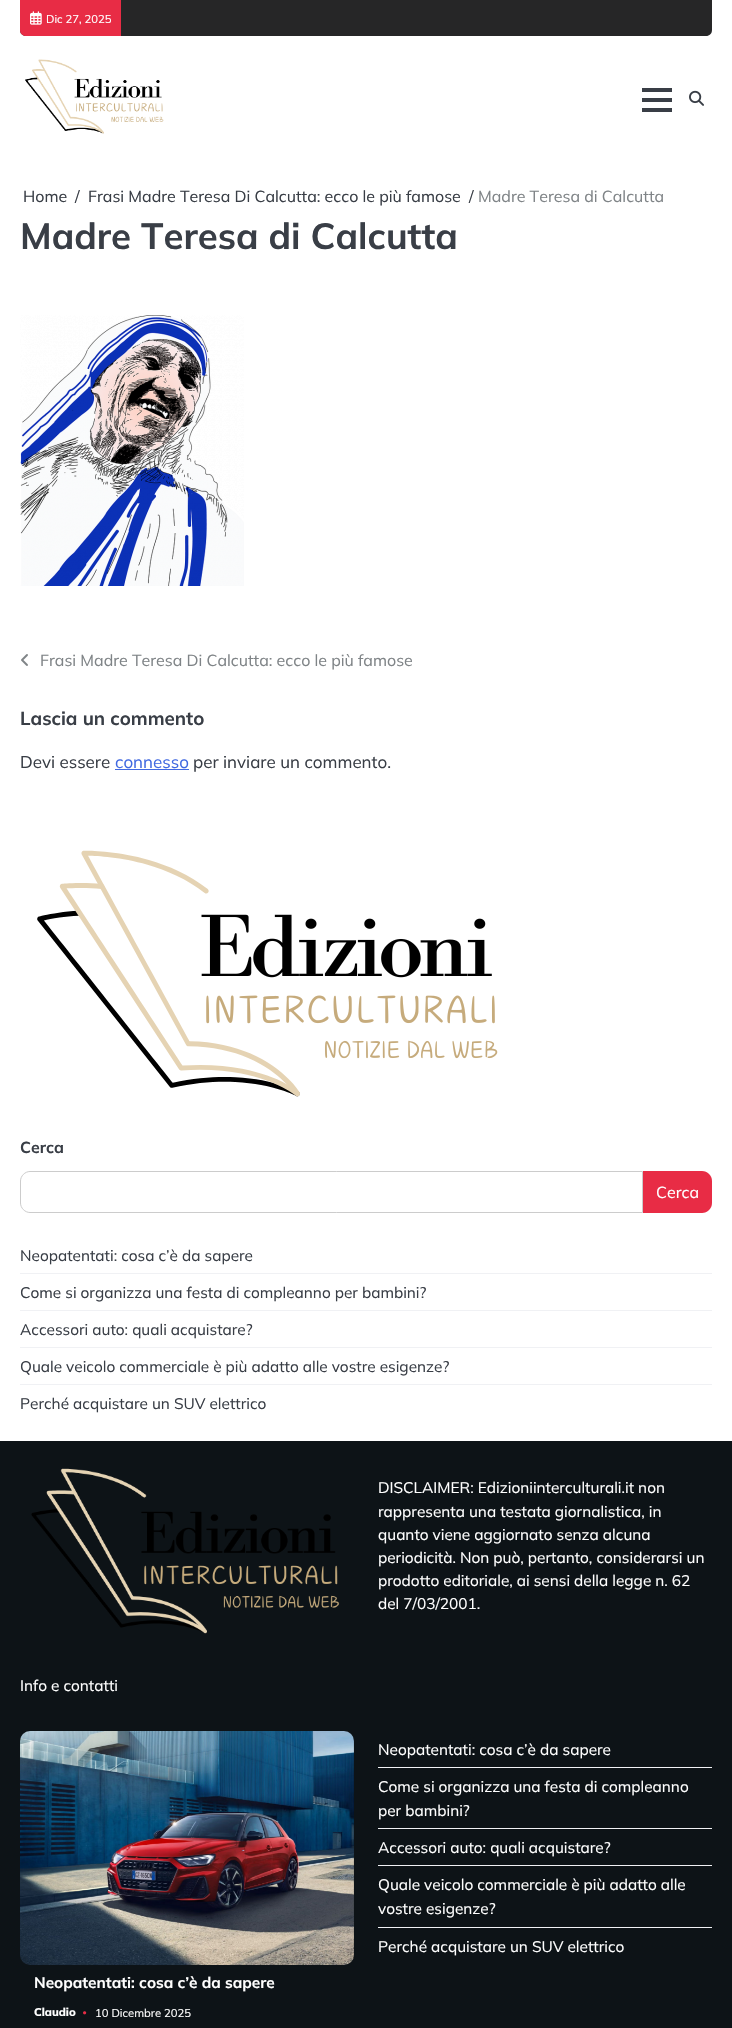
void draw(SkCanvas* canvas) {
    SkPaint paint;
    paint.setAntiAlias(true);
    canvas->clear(0xFFFFFFFF);
    paint.setColor(0xFF262627);
    canvas->drawPath(SkPathBuilder().moveTo(20, 0).lineTo(712, 0).lineTo(712, 30).cubicTo(712, 33.5f, 709.5f, 36, 706, 36).lineTo(26, 36).cubicTo(22.5f, 36, 20, 33.5f, 20, 30).close().detach(), paint);
    paint.setColor(0xFFE82C45);
    canvas->drawPath(SkPathBuilder().moveTo(20, 0).lineTo(121, 0).lineTo(121, 36).lineTo(26, 36).cubicTo(22.5f, 36, 20, 33.5f, 20, 30).close().detach(), paint);
    canvas->drawImageRect(SkImages::DeferredFromEncodedData(SkData::MakeFromFileName("img1.png")), SkRect::MakeXYWH(30, 11, 12, 14), SkSamplingOptions());
    SkFont font1(fontMgr->matchFamilyStyle("Mulish", SkFontStyle::Normal()), 11.25f);
    font1.setSubpixel(true);
    paint.setColor(0xFFFFFFFF);
    canvas->drawString("Dic 27, 2025", 46, 23, font1, paint);
    canvas->drawImageRect(SkImages::DeferredFromEncodedData(SkData::MakeFromFileName("img2.png")), SkRect::MakeXYWH(25, 59, 139, 75), SkSamplingOptions());
    paint.setColor(0xFF393E46);
    canvas->drawRect(SkRect::MakeXYWH(642, 88, 30, 4), paint);
    canvas->drawRect(SkRect::MakeXYWH(642, 98, 30, 4), paint);
    canvas->drawRect(SkRect::MakeXYWH(642, 108, 30, 4), paint);
    canvas->drawImageRect(SkImages::DeferredFromEncodedData(SkData::MakeFromFileName("img3.png")), SkRect::MakeXYWH(689, 90, 15, 16), SkSamplingOptions());
    SkFont font2(fontMgr->matchFamilyStyle("Mulish", SkFontStyle::Normal()), 16);
    font2.setSubpixel(true);
    canvas->drawString("Home", 23, 202, font2, paint);
    canvas->drawString("/", 75, 202, font2, paint);
    canvas->drawString("Frasi Madre Teresa Di Calcutta: ecco le più famose", 88, 202, font2, paint);
    canvas->drawString("/", 469, 202, font2, paint);
    paint.setColor(0xFF7F8487);
    canvas->drawString("Madre Teresa di Calcutta", 478, 202, font2, paint);
    SkFont font3(fontMgr->matchFamilyStyle("Mulish", SkFontStyle::Bold()), 36.4f);
    font3.setSubpixel(true);
    paint.setColor(0xFF393E46);
    canvas->drawString("Madre Teresa di Calcutta", 20, 249, font3, paint);
    canvas->drawImageRect(SkImages::DeferredFromEncodedData(SkData::MakeFromFileName("img4.png")), SkRect::MakeXYWH(20, 315, 224, 271), SkSamplingOptions());
    canvas->drawImageRect(SkImages::DeferredFromEncodedData(SkData::MakeFromFileName("img5.png")), SkRect::MakeXYWH(21, 654, 7, 12), SkSamplingOptions());
    paint.setColor(0xFF7F8487);
    canvas->drawString("Frasi Madre Teresa Di Calcutta: ecco le più famose", 40, 666, font2, paint);
    SkFont font4(fontMgr->matchFamilyStyle("Mulish", SkFontStyle::Bold()), 18.75f);
    font4.setSubpixel(true);
    paint.setColor(0xFF393E46);
    canvas->drawString("Lascia un commento", 20, 725, font4, paint);
    SkFont font5(fontMgr->matchFamilyStyle("Mulish", SkFontStyle::Normal()), 17);
    font5.setSubpixel(true);
    canvas->drawString("Devi essere", 20, 768, font5, paint);
    paint.setColor(0xFF4169E1);
    canvas->drawString("connesso", 115, 768, font5, paint);
    canvas->drawRect(SkRect::MakeXYWH(115, 769, 74, 1), paint);
    paint.setColor(0xFF393E46);
    canvas->drawString("per inviare un commento.", 193, 768, font5, paint);
    canvas->drawImageRect(SkImages::DeferredFromEncodedData(SkData::MakeFromFileName("img6.png")), SkRect::MakeXYWH(37, 850, 461, 247), SkSamplingOptions());
    SkFont font6(fontMgr->matchFamilyStyle("Mulish", SkFontStyle::Bold()), 16);
    font6.setSubpixel(true);
    canvas->drawString("Cerca", 20, 1153, font6, paint);
    paint.setStyle(SkPaint::kStroke_Style);
    paint.setStrokeWidth(1);
    paint.setColor(0xFFCCCCCC);
    canvas->drawPath(SkPathBuilder().moveTo(30, 1171.5f).lineTo(642.5f, 1171.5f).lineTo(642.5f, 1212.5f).lineTo(30, 1212.5f).cubicTo(25, 1212.5f, 20.5f, 1208, 20.5f, 1203).lineTo(20.5f, 1181).cubicTo(20.5f, 1176, 25, 1171.5f, 30, 1171.5f).close().detach(), paint);
    paint.setStyle(SkPaint::kFill_Style);
    paint.setColor(0xFFE82C45);
    canvas->drawPath(SkPathBuilder().moveTo(643, 1171).lineTo(702, 1171).cubicTo(707.5f, 1171, 712, 1175.5f, 712, 1181).lineTo(712, 1203).cubicTo(712, 1208.5f, 707.5f, 1213, 702, 1213).lineTo(643, 1213).close().detach(), paint);
    paint.setColor(0xFFFFFFFF);
    canvas->drawString("Cerca", 656, 1198, font2, paint);
    paint.setColor(0xFFF0F1F4);
    canvas->drawRect(SkRect::MakeXYWH(20, 1273, 692, 1), paint);
    SkFont font7(fontMgr->matchFamilyStyle("Mulish", SkFontStyle::Normal()), 15.4f);
    font7.setSubpixel(true);
    paint.setColor(0xFF393E46);
    canvas->drawString("Neopatentati: cosa c’è da sapere", 20, 1261, font7, paint);
    paint.setColor(0xFFF0F1F4);
    canvas->drawRect(SkRect::MakeXYWH(20, 1310, 692, 1), paint);
    paint.setColor(0xFF393E46);
    canvas->drawString("Come si organizza una festa di compleanno per bambini?", 20, 1298, font7, paint);
    paint.setColor(0xFFF0F1F4);
    canvas->drawRect(SkRect::MakeXYWH(20, 1347, 692, 1), paint);
    paint.setColor(0xFF393E46);
    canvas->drawString("Accessori auto: quali acquistare?", 20, 1335, font7, paint);
    paint.setColor(0xFFF0F1F4);
    canvas->drawRect(SkRect::MakeXYWH(20, 1384, 692, 1), paint);
    paint.setColor(0xFF393E46);
    canvas->drawString("Quale veicolo commerciale è più adatto alle vostre esigenze?", 20, 1372, font7, paint);
    canvas->drawString("Perché acquistare un SUV elettrico", 20, 1409, font7, paint);
    paint.setColor(0xFF0D1317);
    canvas->drawRect(SkRect::MakeXYWH(0, 1441, 732, 587), paint);
    paint.setColor(0xFFFFFFFF);
    canvas->drawString("DISCLAIMER: Edizioniinterculturali.it non", 378, 1493, font7, paint);
    canvas->drawString("rappresenta una testata giornalistica, in", 378, 1517, font7, paint);
    canvas->drawString("quanto viene aggiornato senza alcuna", 378, 1540, font7, paint);
    canvas->drawString("periodicità. Non può, pertanto, considerarsi un", 378, 1563, font7, paint);
    canvas->drawString("prodotto editoriale, ai sensi della legge n. 62", 378, 1586, font7, paint);
    canvas->drawString("del 7/03/2001.", 378, 1609, font7, paint);
    canvas->drawImageRect(SkImages::DeferredFromEncodedData(SkData::MakeFromFileName("img7.png")), SkRect::MakeXYWH(31, 1468, 309, 166), SkSamplingOptions());
    canvas->drawString("Info e contatti", 20, 1691, font7, paint);
    paint.setColor(0xFFF0F1F4);
    canvas->drawRect(SkRect::MakeXYWH(378, 1767, 334, 1), paint);
    paint.setColor(0xFFFFFFFF);
    canvas->drawString("Neopatentati: cosa c’è da sapere", 378, 1755, font7, paint);
    paint.setColor(0xFFF0F1F4);
    canvas->drawRect(SkRect::MakeXYWH(378, 1828, 334, 1), paint);
    paint.setColor(0xFFFFFFFF);
    canvas->drawString("Come si organizza una festa di compleanno", 378, 1792, font7, paint);
    canvas->drawString("per bambini?", 378, 1816, font7, paint);
    paint.setColor(0xFFF0F1F4);
    canvas->drawRect(SkRect::MakeXYWH(378, 1865, 334, 1), paint);
    paint.setColor(0xFFFFFFFF);
    canvas->drawString("Accessori auto: quali acquistare?", 378, 1853, font7, paint);
    paint.setColor(0xFFF0F1F4);
    canvas->drawRect(SkRect::MakeXYWH(378, 1927, 334, 1), paint);
    paint.setColor(0xFFFFFFFF);
    canvas->drawString("Quale veicolo commerciale è più adatto alle", 378, 1890, font7, paint);
    canvas->drawString("vostre esigenze?", 378, 1914, font7, paint);
    canvas->drawString("Perché acquistare un SUV elettrico", 378, 1952, font7, paint);
    canvas->drawImageRect(SkImages::DeferredFromEncodedData(SkData::MakeFromFileName("img8.png")), SkRect::MakeXYWH(20, 1731, 334, 234), SkSamplingOptions());
    SkFont font8(fontMgr->matchFamilyStyle("Mulish", SkFontStyle::Bold()), 15.4f);
    font8.setSubpixel(true);
    canvas->drawString("Neopatentati: cosa c’è da sapere", 34, 1988, font8, paint);
    SkFont font9(fontMgr->matchFamilyStyle("Mulish", SkFontStyle(800, SkFontStyle::kNormal_Width, SkFontStyle::kUpright_Slant)), 11.25f);
    font9.setSubpixel(true);
    canvas->drawString("Claudio", 34, 2016, font9, paint);
    canvas->drawImageRect(SkImages::DeferredFromEncodedData(SkData::MakeFromFileName("img9.png")), SkRect::MakeXYWH(83, 2011, 4, 4), SkSamplingOptions());
    canvas->drawString("10 Dicembre 2025", 95, 2017, font1, paint);
}
